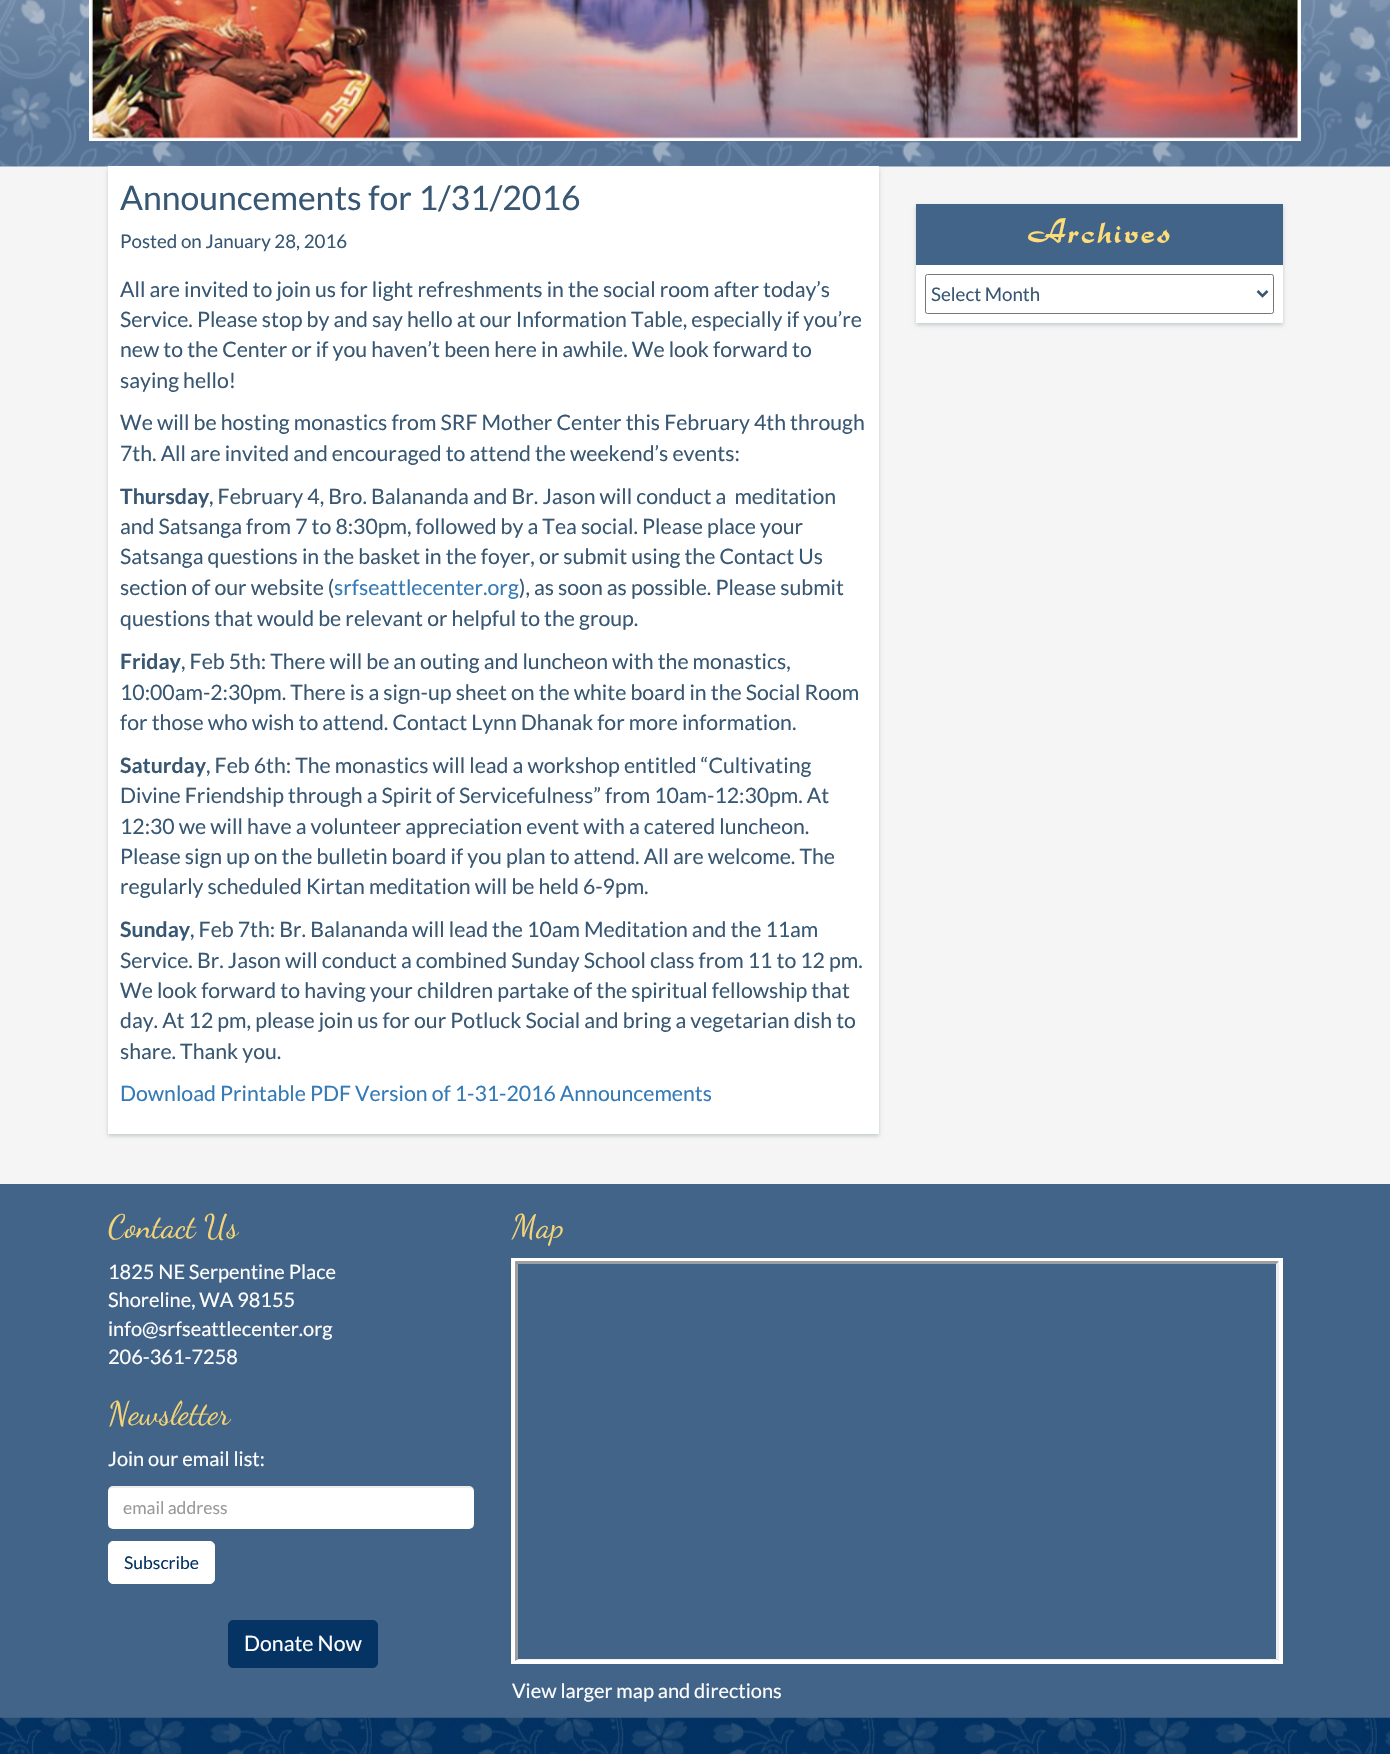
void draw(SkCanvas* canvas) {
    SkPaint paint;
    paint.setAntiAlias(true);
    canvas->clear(0xFFF5F5F5);
    canvas->drawImageRect(SkImages::DeferredFromEncodedData(SkData::MakeFromFileName("img1.png")), SkRect::MakeXYWH(0, 0, 1390, 167), SkSamplingOptions());
    paint.setStyle(SkPaint::kStroke_Style);
    paint.setStrokeWidth(4);
    paint.setColor(0xFFFFFFFF);
    canvas->drawRect(SkRect::MakeXYWH(91, -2, 1208, 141), paint);
    canvas->drawImageRect(SkImages::DeferredFromEncodedData(SkData::MakeFromFileName("img2.png")), SkRect::MakeXYWH(91, 0, 1207, 139), SkSamplingOptions());
    paint.setStyle(SkPaint::kFill_Style);
    paint.setColor(0xFFC3CACD);
    paint.setMaskFilter(SkMaskFilter::MakeBlur(kNormal_SkBlurStyle, 2));
    canvas->drawRect(SkRect::MakeXYWH(108, 169, 771, 967), paint);
    paint.setMaskFilter(nullptr);
    paint.setColor(0xFFFFFFFF);
    canvas->drawRect(SkRect::MakeXYWH(108, 166, 771, 968), paint);
    SkFont font1(fontMgr->matchFamilyStyle("Lato", SkFontStyle::Normal()), 33.75f);
    font1.setSubpixel(true);
    paint.setColor(0xFF385773);
    canvas->drawString("Announcements for 1/31/2016", 120, 210, font1, paint);
    SkFont font2(fontMgr->matchFamilyStyle("Lato", SkFontStyle::Normal()), 18.75f);
    font2.setSubpixel(true);
    canvas->drawString("Posted on January 28, 2016", 120, 248, font2, paint);
    SkFont font3(fontMgr->matchFamilyStyle("Lato", SkFontStyle::Normal()), 21.25f);
    font3.setSubpixel(true);
    canvas->drawString("All are invited to join us for light refreshments in the social room after today’s", 120, 297, font3, paint);
    canvas->drawString("Service. Please stop by and say hello at our Information Table, especially if you’re", 120, 327, font3, paint);
    canvas->drawString("new to the Center or if you haven’t been here in awhile. We look forward to", 120, 357, font3, paint);
    canvas->drawString("saying hello!", 120, 388, font3, paint);
    canvas->drawString("We will be hosting monastics from SRF Mother Center this February 4th through", 120, 430, font3, paint);
    canvas->drawString("7th. All are invited and encouraged to attend the weekend’s events:", 120, 461, font3, paint);
    SkFont font4(fontMgr->matchFamilyStyle("Lato", SkFontStyle::Bold()), 21.25f);
    font4.setSubpixel(true);
    canvas->drawString("Thursday", 120, 504, font4, paint);
    canvas->drawString(", February 4, Bro. Balananda and Br. Jason will conduct a  meditation", 209, 504, font3, paint);
    canvas->drawString("and Satsanga from 7 to 8:30pm, followed by a Tea social. Please place your", 120, 534, font3, paint);
    canvas->drawString("Satsanga questions in the basket in the foyer, or submit using the Contact Us", 120, 564, font3, paint);
    canvas->drawString("section of our website (", 120, 595, font3, paint);
    paint.setColor(0xFF337AB7);
    canvas->drawString("srfseattlecenter.org", 334, 595, font3, paint);
    paint.setColor(0xFF385773);
    canvas->drawString("), as soon as possible. Please submit", 519, 595, font3, paint);
    canvas->drawString("questions that would be relevant or helpful to the group.", 120, 626, font3, paint);
    canvas->drawString("Friday", 120, 669, font4, paint);
    canvas->drawString(", Feb 5th: There will be an outing and luncheon with the monastics,", 181, 669, font3, paint);
    canvas->drawString("10:00am-2:30pm. There is a sign-up sheet on the white board in the Social Room", 120, 700, font3, paint);
    canvas->drawString("for those who wish to attend. Contact Lynn Dhanak for more information.", 120, 730, font3, paint);
    canvas->drawString("Saturday", 120, 773, font4, paint);
    canvas->drawString(", Feb 6th: The monastics will lead a workshop entitled “Cultivating", 206, 773, font3, paint);
    canvas->drawString("Divine Friendship through a Spirit of Servicefulness” from 10am-12:30pm. At", 120, 803, font3, paint);
    canvas->drawString("12:30 we will have a volunteer appreciation event with a catered luncheon.", 120, 834, font3, paint);
    canvas->drawString("Please sign up on the bulletin board if you plan to attend. All are welcome. The", 120, 864, font3, paint);
    canvas->drawString("regularly scheduled Kirtan meditation will be held 6-9pm.", 120, 894, font3, paint);
    canvas->drawString("Sunday", 120, 937, font4, paint);
    canvas->drawString(", Feb 7th: Br. Balananda will lead the 10am Meditation and the 11am", 190, 937, font3, paint);
    canvas->drawString("Service. Br. Jason will conduct a combined Sunday School class from 11 to 12 pm.", 120, 968, font3, paint);
    canvas->drawString("We look forward to having your children partake of the spiritual fellowship that", 120, 998, font3, paint);
    canvas->drawString("day. At 12 pm, please join us for our Potluck Social and bring a vegetarian dish to", 120, 1028, font3, paint);
    canvas->drawString("share. Thank you.", 120, 1059, font3, paint);
    paint.setColor(0xFF337AB7);
    canvas->drawString("Download Printable PDF Version of 1-31-2016 Announcements", 120, 1101, font3, paint);
    paint.setColor(0xFFC3CACD);
    paint.setMaskFilter(SkMaskFilter::MakeBlur(kNormal_SkBlurStyle, 2));
    canvas->drawRect(SkRect::MakeXYWH(916, 206, 367, 119), paint);
    paint.setMaskFilter(nullptr);
    paint.setColor(0xFFFFFFFF);
    canvas->drawRect(SkRect::MakeXYWH(916, 265, 367, 58), paint);
    paint.setColor(0xFF426489);
    canvas->drawRect(SkRect::MakeXYWH(916, 204, 367, 61), paint);
    SkFont font5(fontMgr->matchFamilyStyle("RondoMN", SkFontStyle::Normal()), 37.5f);
    font5.setSubpixel(true);
    paint.setColor(0xFFFEDC78);
    canvas->drawString("Archives", 1027, 243, font5, paint);
    paint.setStyle(SkPaint::kStroke_Style);
    paint.setStrokeWidth(1);
    paint.setColor(0xFF767676);
    canvas->drawRoundRect(SkRect::MakeXYWH(925.5f, 274.5f, 348, 39), 2, 2, paint);
    paint.setStrokeWidth(2.5f);
    paint.setColor(0xFF385773);
    canvas->drawPath(SkPathBuilder().moveTo(1257.5f, 291).lineTo(1262.5f, 296).lineTo(1267.5f, 291).detach(), paint);
    paint.setStyle(SkPaint::kFill_Style);
    canvas->drawString("Select Month", 931, 301, font2, paint);
    paint.setColor(0xFF426489);
    canvas->drawRect(SkRect::MakeXYWH(0, 1184, 1390, 534), paint);
    SkFont font6(fontMgr->matchFamilyStyle("Dancing Script", SkFontStyle::Normal()), 32.5f);
    font6.setSubpixel(true);
    paint.setColor(0xFFF4D476);
    canvas->drawString("Contact Us", 108, 1237, font6, paint);
    SkFont font7(fontMgr->matchFamilyStyle("Lato", SkFontStyle::Normal()), 20);
    font7.setSubpixel(true);
    paint.setColor(0xFFFFFFFF);
    canvas->drawString("1825 NE Serpentine Place", 108, 1279, font7, paint);
    canvas->drawString("Shoreline, WA 98155", 108, 1307, font7, paint);
    canvas->drawString("info@srfseattlecenter.org", 108, 1336, font7, paint);
    canvas->drawString("206-361-7258", 108, 1364, font7, paint);
    paint.setColor(0xFFF4D476);
    canvas->drawString("Newsletter", 108, 1424, font6, paint);
    paint.setColor(0xFFFFFFFF);
    canvas->drawString("Join our email list:", 108, 1466, font7, paint);
    canvas->drawRoundRect(SkRect::MakeXYWH(108, 1486, 366, 43), 5, 5, paint);
    paint.setColor(0x12000000);
    canvas->drawPath(SkPathBuilder().moveTo(112, 1488).lineTo(469, 1488).cubicTo(472, 1488, 474, 1490, 474, 1492).lineTo(474, 1491).cubicTo(474, 1488, 472, 1486, 469, 1486).lineTo(113, 1486).cubicTo(110, 1486, 108, 1488, 108, 1491).lineTo(108, 1492).cubicTo(108, 1490, 110, 1488, 112, 1488).close().detach(), paint);
    SkFont font8(fontMgr->matchFamilyStyle("Lato", SkFontStyle::Normal()), 17.5f);
    font8.setSubpixel(true);
    paint.setColor(0xFF999999);
    canvas->drawString("email address", 123, 1514, font8, paint);
    paint.setColor(0xFFFFFFFF);
    canvas->drawRoundRect(SkRect::MakeXYWH(108.5f, 1541.5f, 106, 42), 4.5f, 4.5f, paint);
    paint.setStyle(SkPaint::kStroke_Style);
    paint.setStrokeWidth(1);
    canvas->drawRoundRect(SkRect::MakeXYWH(108.5f, 1541.5f, 106, 42), 4.5f, 4.5f, paint);
    paint.setStyle(SkPaint::kFill_Style);
    paint.setColor(0xFF043364);
    canvas->drawString("Subscribe", 124, 1569, font8, paint);
    canvas->drawRoundRect(SkRect::MakeXYWH(228.5f, 1620.5f, 149, 47), 4.5f, 4.5f, paint);
    paint.setStyle(SkPaint::kStroke_Style);
    canvas->drawRoundRect(SkRect::MakeXYWH(228.5f, 1620.5f, 149, 47), 4.5f, 4.5f, paint);
    paint.setStyle(SkPaint::kFill_Style);
    paint.setColor(0xFFFFFFFF);
    canvas->drawString("Donate Now", 244, 1651, font3, paint);
    paint.setColor(0xFFF4D476);
    canvas->drawString("Map", 512, 1237, font6, paint);
    paint.setStyle(SkPaint::kStroke_Style);
    paint.setStrokeWidth(4);
    paint.setColor(0xFFFFFFFF);
    canvas->drawRect(SkRect::MakeXYWH(513, 1260, 768, 402), paint);
    paint.setStyle(SkPaint::kFill_Style);
    paint.setColor(0xFF9F9F9F);
    canvas->drawPath(SkPathBuilder().moveTo(515, 1261).lineTo(1279, 1261).lineTo(1276, 1264).lineTo(518, 1264).close().detach(), paint);
    paint.setColor(0xFFEEEEEE);
    canvas->drawPath(SkPathBuilder().moveTo(1279, 1261).lineTo(1279, 1661).lineTo(1276, 1659).lineTo(1276, 1264).close().detach(), paint);
    canvas->save();
    canvas->clipRect(SkRect::MakeXYWH(515, 1261, 764, 399));
    canvas->drawPath(SkPathBuilder().moveTo(1279, 1661).lineTo(515, 1661).lineTo(518, 1659).lineTo(1276, 1659).close().detach(), paint);
    canvas->restore();
    paint.setColor(0xFF9F9F9F);
    canvas->drawPath(SkPathBuilder().moveTo(515, 1661).lineTo(515, 1261).lineTo(518, 1264).lineTo(518, 1659).close().detach(), paint);
    paint.setColor(0xFFFFFFFF);
    canvas->drawString("View larger map and directions", 512, 1698, font7, paint);
    canvas->drawImageRect(SkImages::DeferredFromEncodedData(SkData::MakeFromFileName("img3.png")), SkRect::MakeXYWH(0, 1717, 1390, 37), SkSamplingOptions());
}
